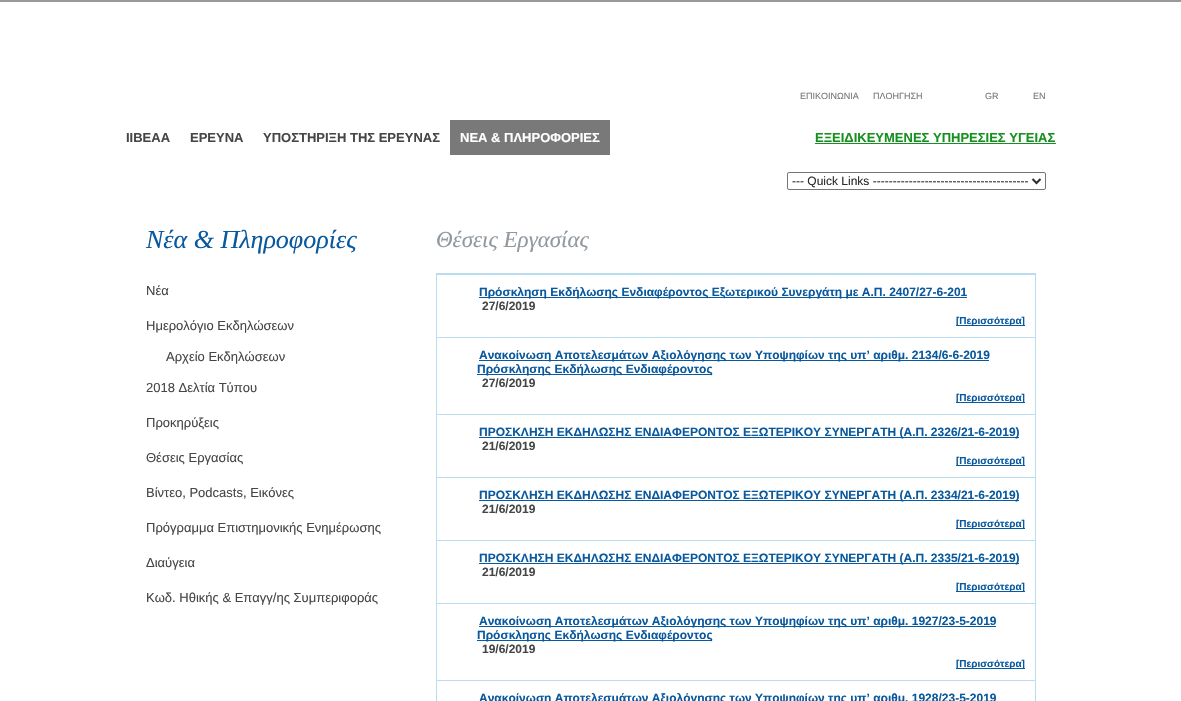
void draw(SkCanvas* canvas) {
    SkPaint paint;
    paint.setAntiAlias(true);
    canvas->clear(0xFFFFFFFF);
    paint.setColor(0xFF999999);
    canvas->drawRect(SkRect::MakeXYWH(0, 0, 1181, 2), paint);
    SkFont font1(fontMgr->matchFamilyStyle("Liberation Sans", SkFontStyle::Normal()), 9);
    font1.setSubpixel(true);
    paint.setColor(0xFF777777);
    canvas->drawString("ΕΠΙΚΟΙΝΩΝΙΑ", 800, 99, font1, paint);
    canvas->drawString("ΠΛΟΗΓΗΣΗ", 873, 99, font1, paint);
    canvas->drawString("GR", 985, 99, font1, paint);
    canvas->drawString("EN", 1033, 99, font1, paint);
    SkFont font2(fontMgr->matchFamilyStyle("Liberation Sans", SkFontStyle::Bold()), 13);
    font2.setSubpixel(true);
    paint.setColor(0xFF454646);
    canvas->drawString("ΙΙΒΕΑΑ", 126, 142, font2, paint);
    canvas->drawString("ΕΡΕΥΝΑ", 190, 142, font2, paint);
    canvas->drawString("ΥΠΟΣΤΗΡΙΞΗ ΤΗΣ ΕΡΕΥΝΑΣ", 263, 142, font2, paint);
    paint.setColor(0xFF797979);
    canvas->drawRect(SkRect::MakeXYWH(450, 120, 160, 35), paint);
    paint.setColor(0xFFFFFFFF);
    canvas->drawString("ΝΕΑ & ΠΛΗΡΟΦΟΡΙΕΣ", 460, 142, font2, paint);
    paint.setColor(0xFF16901F);
    canvas->drawString("ΕΞΕΙΔΙΚΕΥΜΕΝΕΣ ΥΠΗΡΕΣΙΕΣ ΥΓΕΙΑΣ", 815, 142, font2, paint);
    canvas->drawRect(SkRect::MakeXYWH(815, 143, 241, 1), paint);
    paint.setStyle(SkPaint::kStroke_Style);
    paint.setStrokeWidth(1);
    paint.setColor(0xFF767676);
    canvas->drawRoundRect(SkRect::MakeXYWH(787.5f, 172.5f, 258, 17), 1.5f, 1.5f, paint);
    paint.setStrokeWidth(2);
    paint.setColor(0xFF2D2B2C);
    canvas->drawPath(SkPathBuilder().moveTo(1032.5f, 179).lineTo(1036.5f, 183).lineTo(1040.5f, 179).detach(), paint);
    SkFont font3(fontMgr->matchFamilyStyle("Liberation Sans", SkFontStyle::Normal()), 12);
    font3.setSubpixel(true);
    paint.setStyle(SkPaint::kFill_Style);
    canvas->drawString("--- Quick Links ---------------------------------------", 792, 185, font3, paint);
    SkFont font4(fontMgr->matchFamilyStyle("Liberation Serif", SkFontStyle::Italic()), 26);
    font4.setSubpixel(true);
    paint.setColor(0xFF09599E);
    canvas->drawString("Νέα & Πληροφορίες", 146, 248, font4, paint);
    SkFont font5(fontMgr->matchFamilyStyle("Liberation Sans", SkFontStyle::Normal()), 13);
    font5.setSubpixel(true);
    paint.setColor(0xFF454646);
    canvas->drawString("Νέα", 146, 295, font5, paint);
    canvas->drawString("Ημερολόγιο Εκδηλώσεων", 146, 330, font5, paint);
    canvas->drawString("Αρχείο Εκδηλώσεων", 166, 361, font5, paint);
    canvas->drawString("2018 Δελτία Τύπου", 146, 392, font5, paint);
    canvas->drawString("Προκηρύξεις", 146, 427, font5, paint);
    canvas->drawString("Θέσεις Εργασίας", 146, 462, font5, paint);
    canvas->drawString("Βίντεο, Podcasts, Εικόνες", 146, 497, font5, paint);
    canvas->drawString("Πρόγραμμα Επιστημονικής Ενημέρωσης", 146, 532, font5, paint);
    canvas->drawString("Διαύγεια", 146, 567, font5, paint);
    canvas->drawString("Κωδ. Ηθικής & Επαγγ/ης Συμπεριφοράς", 146, 602, font5, paint);
    SkFont font6(fontMgr->matchFamilyStyle("Liberation Serif", SkFontStyle::Italic()), 23);
    font6.setSubpixel(true);
    paint.setColor(0xFF91989E);
    canvas->drawString("Θέσεις Εργασίας", 436, 247, font6, paint);
    paint.setStyle(SkPaint::kStroke_Style);
    paint.setStrokeWidth(1);
    paint.setColor(0xFFB8DDEF);
    canvas->drawRect(SkRect::MakeXYWH(436.5f, 273.5f, 599, 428), paint);
    paint.setStyle(SkPaint::kFill_Style);
    canvas->drawRect(SkRect::MakeXYWH(437, 274, 598, 1), paint);
    paint.setColor(0xFF0959A0);
    canvas->drawRect(SkRect::MakeXYWH(479, 297, 488, 1), paint);
    SkFont font7(fontMgr->matchFamilyStyle("Liberation Sans", SkFontStyle::Bold()), 12);
    font7.setSubpixel(true);
    paint.setColor(0xFF09599E);
    canvas->drawString("Πρόσκληση Εκδήλωσης Ενδιαφέροντος Εξωτερικού Συνεργάτη με Α.Π. 2407/27-6-201", 479, 296, font7, paint);
    paint.setColor(0xFF454646);
    canvas->drawString("27/6/2019", 482, 310, font7, paint);
    paint.setColor(0xFF0959A0);
    canvas->drawRect(SkRect::MakeXYWH(956, 325, 69, 1), paint);
    SkFont font8(fontMgr->matchFamilyStyle("Liberation Sans", SkFontStyle::Bold()), 10);
    font8.setSubpixel(true);
    paint.setColor(0xFF09599E);
    canvas->drawString("[Περισσότερα]", 956, 324, font8, paint);
    paint.setColor(0xFFB8DDEF);
    canvas->drawRect(SkRect::MakeXYWH(437, 337, 598, 1), paint);
    paint.setColor(0xFF0959A0);
    canvas->drawRect(SkRect::MakeXYWH(479, 360, 510, 1), paint);
    paint.setColor(0xFF09599E);
    canvas->drawString("Ανακοίνωση Αποτελεσμάτων Αξιολόγησης των Υποψηφίων της υπ’ αριθμ. 2134/6-6-2019", 479, 359, font7, paint);
    paint.setColor(0xFF0959A0);
    canvas->drawRect(SkRect::MakeXYWH(477, 374, 235, 1), paint);
    paint.setColor(0xFF09599E);
    canvas->drawString("Πρόσκλησης Εκδήλωσης Ενδιαφέροντος", 477, 373, font7, paint);
    paint.setColor(0xFF454646);
    canvas->drawString("27/6/2019", 482, 387, font7, paint);
    paint.setColor(0xFF0959A0);
    canvas->drawRect(SkRect::MakeXYWH(956, 402, 69, 1), paint);
    paint.setColor(0xFF09599E);
    canvas->drawString("[Περισσότερα]", 956, 401, font8, paint);
    paint.setColor(0xFFB8DDEF);
    canvas->drawRect(SkRect::MakeXYWH(437, 414, 598, 1), paint);
    paint.setColor(0xFF0959A0);
    canvas->drawRect(SkRect::MakeXYWH(479, 437, 540, 1), paint);
    paint.setColor(0xFF09599E);
    canvas->drawString("ΠΡΟΣΚΛΗΣΗ ΕΚΔΗΛΩΣΗΣ ΕΝΔΙΑΦΕΡΟΝΤΟΣ ΕΞΩΤΕΡΙΚOY ΣΥΝΕΡΓΑΤH (Α.Π. 2326/21-6-2019)", 479, 436, font7, paint);
    paint.setColor(0xFF454646);
    canvas->drawString("21/6/2019", 482, 450, font7, paint);
    paint.setColor(0xFF0959A0);
    canvas->drawRect(SkRect::MakeXYWH(956, 465, 69, 1), paint);
    paint.setColor(0xFF09599E);
    canvas->drawString("[Περισσότερα]", 956, 464, font8, paint);
    paint.setColor(0xFFB8DDEF);
    canvas->drawRect(SkRect::MakeXYWH(437, 477, 598, 1), paint);
    paint.setColor(0xFF0959A0);
    canvas->drawRect(SkRect::MakeXYWH(479, 500, 540, 1), paint);
    paint.setColor(0xFF09599E);
    canvas->drawString("ΠΡΟΣΚΛΗΣΗ ΕΚΔΗΛΩΣΗΣ ΕΝΔΙΑΦΕΡΟΝΤΟΣ ΕΞΩΤΕΡΙΚOY ΣΥΝΕΡΓΑΤH (Α.Π. 2334/21-6-2019)", 479, 499, font7, paint);
    paint.setColor(0xFF454646);
    canvas->drawString("21/6/2019", 482, 513, font7, paint);
    paint.setColor(0xFF0959A0);
    canvas->drawRect(SkRect::MakeXYWH(956, 528, 69, 1), paint);
    paint.setColor(0xFF09599E);
    canvas->drawString("[Περισσότερα]", 956, 527, font8, paint);
    paint.setColor(0xFFB8DDEF);
    canvas->drawRect(SkRect::MakeXYWH(437, 540, 598, 1), paint);
    paint.setColor(0xFF0959A0);
    canvas->drawRect(SkRect::MakeXYWH(479, 563, 540, 1), paint);
    paint.setColor(0xFF09599E);
    canvas->drawString("ΠΡΟΣΚΛΗΣΗ ΕΚΔΗΛΩΣΗΣ ΕΝΔΙΑΦΕΡΟΝΤΟΣ ΕΞΩΤΕΡΙΚOY ΣΥΝΕΡΓΑΤH (Α.Π. 2335/21-6-2019)", 479, 562, font7, paint);
    paint.setColor(0xFF454646);
    canvas->drawString("21/6/2019", 482, 576, font7, paint);
    paint.setColor(0xFF0959A0);
    canvas->drawRect(SkRect::MakeXYWH(956, 591, 69, 1), paint);
    paint.setColor(0xFF09599E);
    canvas->drawString("[Περισσότερα]", 956, 590, font8, paint);
    paint.setColor(0xFFB8DDEF);
    canvas->drawRect(SkRect::MakeXYWH(437, 603, 598, 1), paint);
    paint.setColor(0xFF0959A0);
    canvas->drawRect(SkRect::MakeXYWH(479, 626, 517, 1), paint);
    paint.setColor(0xFF09599E);
    canvas->drawString("Ανακοίνωση Αποτελεσμάτων Αξιολόγησης των Υποψηφίων της υπ’ αριθμ. 1927/23-5-2019", 479, 625, font7, paint);
    paint.setColor(0xFF0959A0);
    canvas->drawRect(SkRect::MakeXYWH(477, 640, 235, 1), paint);
    paint.setColor(0xFF09599E);
    canvas->drawString("Πρόσκλησης Εκδήλωσης Ενδιαφέροντος", 477, 639, font7, paint);
    paint.setColor(0xFF454646);
    canvas->drawString("19/6/2019", 482, 653, font7, paint);
    paint.setColor(0xFF0959A0);
    canvas->drawRect(SkRect::MakeXYWH(956, 668, 69, 1), paint);
    paint.setColor(0xFF09599E);
    canvas->drawString("[Περισσότερα]", 956, 667, font8, paint);
    paint.setColor(0xFFB8DDEF);
    canvas->drawRect(SkRect::MakeXYWH(437, 680, 598, 1), paint);
    paint.setColor(0xFF09599E);
    canvas->drawString("Ανακοίνωση Αποτελεσμάτων Αξιολόγησης των Υποψηφίων της υπ’ αριθμ. 1928/23-5-2019", 479, 702, font7, paint);
}
